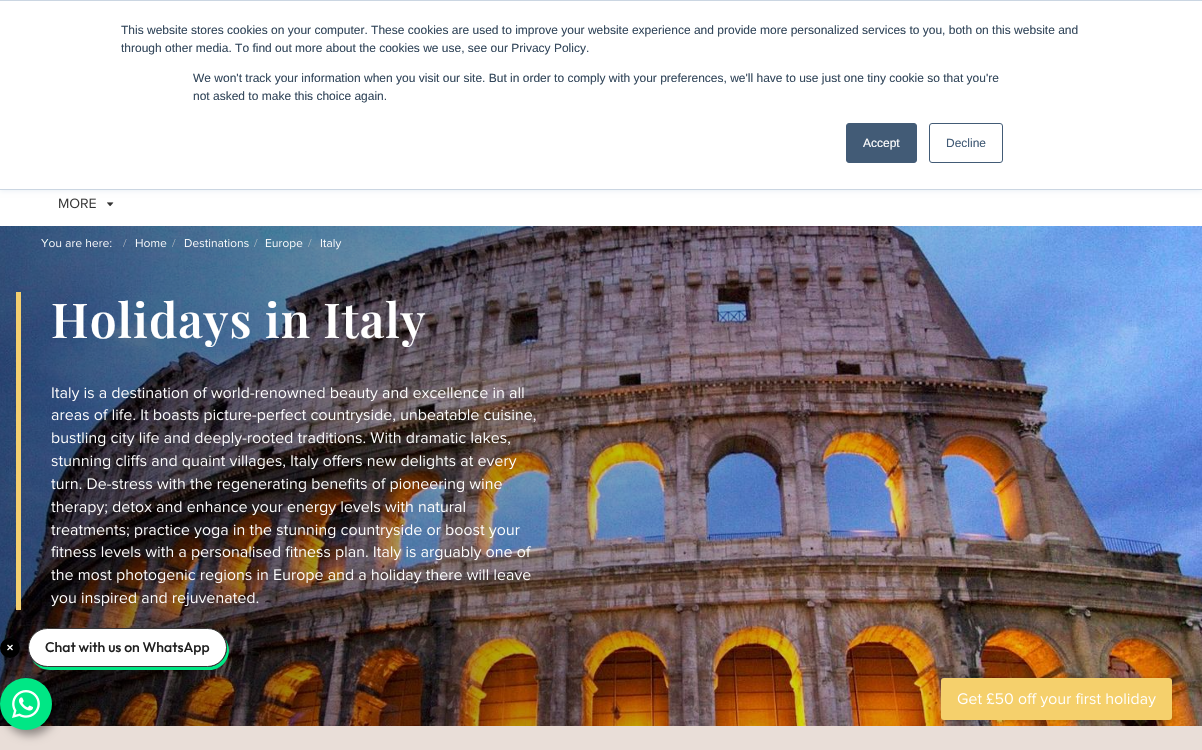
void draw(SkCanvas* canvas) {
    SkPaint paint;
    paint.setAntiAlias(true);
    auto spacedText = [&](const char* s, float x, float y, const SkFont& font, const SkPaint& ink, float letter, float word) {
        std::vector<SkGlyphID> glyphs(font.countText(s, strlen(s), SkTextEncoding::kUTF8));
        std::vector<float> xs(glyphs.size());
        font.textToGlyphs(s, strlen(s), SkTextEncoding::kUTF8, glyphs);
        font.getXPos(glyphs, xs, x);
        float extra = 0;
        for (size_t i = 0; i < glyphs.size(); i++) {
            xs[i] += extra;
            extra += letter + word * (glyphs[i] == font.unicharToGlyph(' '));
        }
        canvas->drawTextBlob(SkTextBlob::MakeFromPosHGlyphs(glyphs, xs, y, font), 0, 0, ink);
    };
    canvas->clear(0xFFFFFFFF);
    canvas->drawImageRect(SkImages::DeferredFromEncodedData(SkData::MakeFromFileName("img1.png")), SkRect::MakeXYWH(59, 198, 37, 11), SkSamplingOptions());
    paint.setColor(0xFFEAF0F6);
    paint.setMaskFilter(SkMaskFilter::MakeBlur(kNormal_SkBlurStyle, 2.5f));
    canvas->drawRect(SkRect::MakeXYWH(0, 1, 1202, 190), paint);
    paint.setMaskFilter(nullptr);
    paint.setColor(0xFFFFFFFF);
    canvas->drawRect(SkRect::MakeXYWH(0, 1, 1202, 188), paint);
    paint.setColor(0xFFCBD6E2);
    canvas->drawRect(SkRect::MakeXYWH(0, 0, 1202, 1), paint);
    canvas->drawRect(SkRect::MakeXYWH(0, 189, 1202, 1), paint);
    SkFont font1(fontMgr->matchFamilyStyle("Liberation Sans", SkFontStyle::Normal()), 12);
    font1.setSubpixel(true);
    paint.setColor(0xFF33475B);
    canvas->drawString("This website stores cookies on your computer. These cookies are used to improve your website experience and provide more personalized services to you, both on this website and", 121, 34, font1, paint);
    canvas->drawString("through other media. To find out more about the cookies we use, see our Privacy Policy.", 121, 52, font1, paint);
    canvas->drawString("We won't track your information when you visit our site. But in order to comply with your preferences, we'll have to use just one tiny cookie so that you're", 193, 82, font1, paint);
    canvas->drawString("not asked to make this choice again.", 193, 100, font1, paint);
    paint.setColor(0xFF425B76);
    canvas->drawRoundRect(SkRect::MakeXYWH(846.5f, 123.5f, 70, 39), 2.5f, 2.5f, paint);
    paint.setStyle(SkPaint::kStroke_Style);
    paint.setStrokeWidth(1);
    canvas->drawRoundRect(SkRect::MakeXYWH(846.5f, 123.5f, 70, 39), 2.5f, 2.5f, paint);
    paint.setStyle(SkPaint::kFill_Style);
    paint.setColor(0xFFFFFFFF);
    canvas->drawString("Accept", 863, 147, font1, paint);
    paint.setStyle(SkPaint::kStroke_Style);
    paint.setColor(0xFF425B76);
    canvas->drawRoundRect(SkRect::MakeXYWH(929.5f, 123.5f, 73, 39), 2.5f, 2.5f, paint);
    paint.setStyle(SkPaint::kFill_Style);
    canvas->drawString("Decline", 946, 147, font1, paint);
    canvas->drawImageRect(SkImages::DeferredFromEncodedData(SkData::MakeFromFileName("img2.png")), SkRect::MakeXYWH(107, 202, 7, 5), SkSamplingOptions());
    canvas->drawImageRect(SkImages::DeferredFromEncodedData(SkData::MakeFromFileName("img3.png")), SkRect::MakeXYWH(0, 226, 1202, 500), SkSamplingOptions());
    canvas->drawImageRect(SkImages::DeferredFromEncodedData(SkData::MakeFromFileName("img4.png")), SkRect::MakeXYWH(41, 239, 71, 9), SkSamplingOptions());
    paint.setColor(0xFFCCCCCC);
    canvas->drawPath(SkPathBuilder().moveTo(123.5f, 247).lineTo(123, 247).lineTo(126, 239).lineTo(126.5f, 239).close().detach(), paint);
    canvas->drawImageRect(SkImages::DeferredFromEncodedData(SkData::MakeFromFileName("img5.png")), SkRect::MakeXYWH(135, 239, 32, 9), SkSamplingOptions());
    canvas->drawPath(SkPathBuilder().moveTo(172.5f, 247).lineTo(172, 247).lineTo(175, 239).lineTo(175.5f, 239).close().detach(), paint);
    canvas->drawImageRect(SkImages::DeferredFromEncodedData(SkData::MakeFromFileName("img6.png")), SkRect::MakeXYWH(184, 239, 65, 9), SkSamplingOptions());
    canvas->drawPath(SkPathBuilder().moveTo(254.5f, 247).lineTo(254, 247).lineTo(257, 239).lineTo(257.5f, 239).close().detach(), paint);
    canvas->drawImageRect(SkImages::DeferredFromEncodedData(SkData::MakeFromFileName("img7.png")), SkRect::MakeXYWH(265, 239, 38, 11), SkSamplingOptions());
    canvas->drawPath(SkPathBuilder().moveTo(308.5f, 247).lineTo(308, 247).lineTo(311, 239).lineTo(311.5f, 239).close().detach(), paint);
    canvas->drawImageRect(SkImages::DeferredFromEncodedData(SkData::MakeFromFileName("img8.png")), SkRect::MakeXYWH(320, 239, 22, 11), SkSamplingOptions());
    paint.setColor(0xFFF4CF70);
    canvas->drawRect(SkRect::MakeXYWH(16, 292, 5, 318), paint);
    SkFont font2(fontMgr->matchFamilyStyle("Playfair Display", SkFontStyle(600, SkFontStyle::kNormal_Width, SkFontStyle::kUpright_Slant)), 48);
    font2.setSubpixel(true);
    paint.setColor(0xFFFFFFFF);
    spacedText("Holidays in Italy", 51, 338, font2, paint, 1, 0);
    canvas->drawImageRect(SkImages::DeferredFromEncodedData(SkData::MakeFromFileName("img9.png")), SkRect::MakeXYWH(52, 387, 472, 15), SkSamplingOptions());
    canvas->drawImageRect(SkImages::DeferredFromEncodedData(SkData::MakeFromFileName("img10.png")), SkRect::MakeXYWH(51, 409, 485, 15), SkSamplingOptions());
    canvas->drawImageRect(SkImages::DeferredFromEncodedData(SkData::MakeFromFileName("img11.png")), SkRect::MakeXYWH(52, 432, 458, 15), SkSamplingOptions());
    canvas->drawImageRect(SkImages::DeferredFromEncodedData(SkData::MakeFromFileName("img12.png")), SkRect::MakeXYWH(51, 455, 466, 15), SkSamplingOptions());
    canvas->drawImageRect(SkImages::DeferredFromEncodedData(SkData::MakeFromFileName("img13.png")), SkRect::MakeXYWH(51, 478, 451, 15), SkSamplingOptions());
    canvas->drawImageRect(SkImages::DeferredFromEncodedData(SkData::MakeFromFileName("img14.png")), SkRect::MakeXYWH(51, 501, 414, 15), SkSamplingOptions());
    canvas->drawImageRect(SkImages::DeferredFromEncodedData(SkData::MakeFromFileName("img15.png")), SkRect::MakeXYWH(51, 524, 469, 15), SkSamplingOptions());
    canvas->drawImageRect(SkImages::DeferredFromEncodedData(SkData::MakeFromFileName("img16.png")), SkRect::MakeXYWH(51, 546, 481, 15), SkSamplingOptions());
    canvas->drawImageRect(SkImages::DeferredFromEncodedData(SkData::MakeFromFileName("img17.png")), SkRect::MakeXYWH(51, 569, 480, 15), SkSamplingOptions());
    canvas->drawImageRect(SkImages::DeferredFromEncodedData(SkData::MakeFromFileName("img18.png")), SkRect::MakeXYWH(51, 592, 208, 15), SkSamplingOptions());
    paint.setColor(0xFFE9DED8);
    canvas->drawRect(SkRect::MakeXYWH(0, 726, 1202, 24), paint);
    paint.setColor(0xFF000000);
    canvas->drawCircle(10, 648, 10, paint);
    paint.setStyle(SkPaint::kStroke_Style);
    paint.setStrokeWidth(1.3f);
    paint.setColor(0xFFFFFFFF);
    canvas->drawPath(SkPathBuilder().moveTo(7.5f, 645).lineTo(12.5f, 650).moveTo(7.5f, 650).lineTo(12.5f, 645).detach(), paint);
    paint.setStyle(SkPaint::kFill_Style);
    paint.setColor(0x66000000);
    paint.setMaskFilter(SkMaskFilter::MakeBlur(kNormal_SkBlurStyle, 5));
    canvas->drawRoundRect(SkRect::MakeXYWH(4, 683, 52, 52), 26, 26, paint);
    paint.setMaskFilter(nullptr);
    paint.setColor(0xFF00E785);
    canvas->drawPath(SkPathBuilder().moveTo(32, 660).cubicTo(36, 666, 42, 670, 50, 670).lineTo(210, 670).cubicTo(220, 670, 229, 661, 229, 650).cubicTo(229, 646, 227, 642, 225, 638).cubicTo(226, 641, 227, 644, 227, 648).cubicTo(227, 658, 218, 667, 208, 667).lineTo(48, 667).cubicTo(41, 667, 36, 664, 32, 660).close().detach(), paint);
    paint.setColor(0xFFFFFFFF);
    canvas->drawRoundRect(SkRect::MakeXYWH(28.5f, 628.5f, 198, 38), 19, 19, paint);
    paint.setStyle(SkPaint::kStroke_Style);
    paint.setStrokeWidth(1);
    paint.setColor(0xFF363636);
    canvas->drawRoundRect(SkRect::MakeXYWH(28.5f, 628.5f, 198, 38), 19, 19, paint);
    SkFont font3(fontMgr->matchFamilyStyle("Outfit", SkFontStyle(500, SkFontStyle::kNormal_Width, SkFontStyle::kUpright_Slant)), 14);
    font3.setSubpixel(true);
    paint.setStyle(SkPaint::kFill_Style);
    paint.setColor(0xFF202020);
    canvas->drawString("Chat with us on WhatsApp", 45, 652, font3, paint);
    paint.setColor(0xFF00E785);
    canvas->drawCircle(26, 704, 26, paint);
    canvas->drawImageRect(SkImages::DeferredFromEncodedData(SkData::MakeFromFileName("img19.png")), SkRect::MakeXYWH(12, 690, 28, 28), SkSamplingOptions());
    paint.setColor(0x33000000);
    paint.setMaskFilter(SkMaskFilter::MakeBlur(kNormal_SkBlurStyle, 2.5f));
    canvas->drawRoundRect(SkRect::MakeXYWH(942, 679, 231, 42), 3, 3, paint);
    paint.setMaskFilter(nullptr);
    paint.setColor(0xFFF5D06C);
    canvas->drawRoundRect(SkRect::MakeXYWH(941, 678, 231, 42), 3, 3, paint);
    canvas->drawImageRect(SkImages::DeferredFromEncodedData(SkData::MakeFromFileName("img20.png")), SkRect::MakeXYWH(957, 693, 199, 15), SkSamplingOptions());
}
